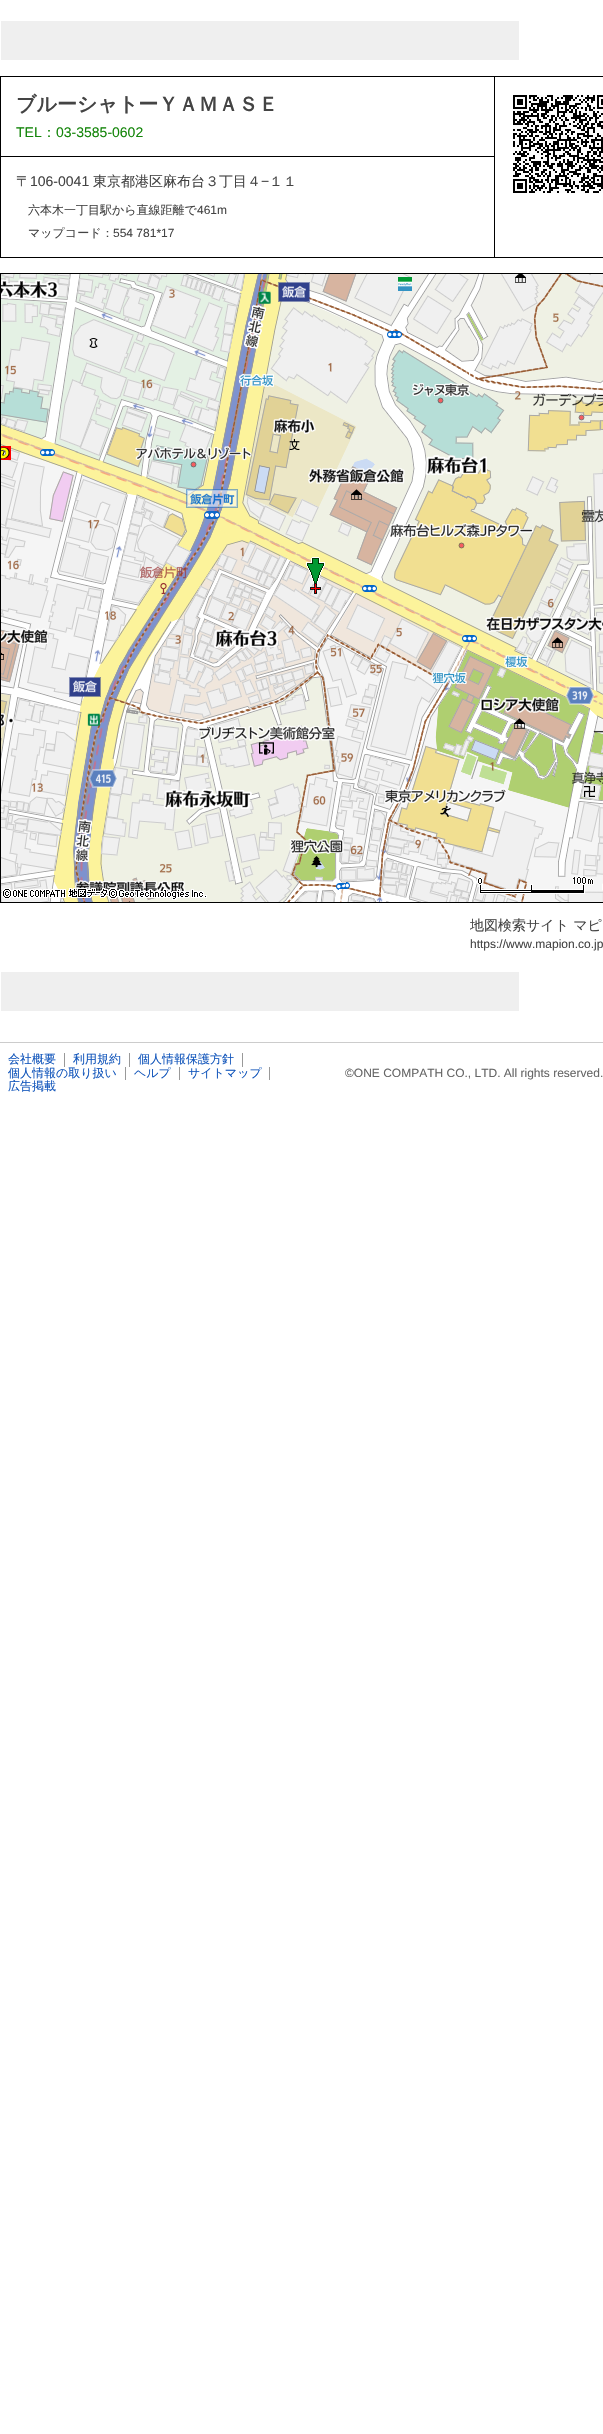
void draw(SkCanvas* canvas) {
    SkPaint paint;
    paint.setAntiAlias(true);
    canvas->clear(0xFFFFFFFF);
    paint.setColor(0xFFEFEFEF);
    canvas->drawRect(SkRect::MakeXYWH(1, 21, 518, 39), paint);
    paint.setColor(0xFF000000);
    canvas->drawRect(SkRect::MakeXYWH(0, 76, 603, 1), paint);
    canvas->drawRect(SkRect::MakeXYWH(0, 257, 603, 1), paint);
    canvas->drawRect(SkRect::MakeXYWH(0, 76, 1, 182), paint);
    canvas->drawRect(SkRect::MakeXYWH(494, 76, 1, 182), paint);
    canvas->drawRect(SkRect::MakeXYWH(0, 156, 495, 1), paint);
    SkFont font1(fontMgr->matchFamilyStyle("WenQuanYi Zen Hei", SkFontStyle::Bold()), 20);
    font1.setSubpixel(true);
    paint.setColor(0xFF444444);
    canvas->drawString("ブルーシャトーＹＡＭＡＳＥ", 16, 111, font1, paint);
    SkFont font2(fontMgr->matchFamilyStyle("Liberation Sans", SkFontStyle::Normal()), 14);
    font2.setSubpixel(true);
    paint.setColor(0xFF138509);
    canvas->drawString("TEL", 16, 137, font2, paint);
    SkFont font3(fontMgr->matchFamilyStyle("WenQuanYi Zen Hei", SkFontStyle(500, SkFontStyle::kNormal_Width, SkFontStyle::kUpright_Slant)), 14);
    font3.setSubpixel(true);
    canvas->drawString("：", 42, 137, font3, paint);
    canvas->drawString("03-3585-0602", 56, 137, font2, paint);
    canvas->drawImageRect(SkImages::DeferredFromEncodedData(SkData::MakeFromFileName("img1.png")), SkRect::MakeXYWH(513, 95, 90, 98), SkSamplingOptions());
    paint.setColor(0xFF444444);
    canvas->drawString("〒", 16, 186, font3, paint);
    canvas->drawString("106-0041", 30, 186, font2, paint);
    canvas->drawString("東京都港区麻布台３丁目４", 93, 186, font3, paint);
    canvas->drawString("−", 261, 186, font2, paint);
    canvas->drawString("１１", 269, 186, font3, paint);
    SkFont font4(fontMgr->matchFamilyStyle("WenQuanYi Zen Hei", SkFontStyle(500, SkFontStyle::kNormal_Width, SkFontStyle::kUpright_Slant)), 12);
    font4.setSubpixel(true);
    canvas->drawString("六本木一丁目駅から直線距離で", 28, 214, font4, paint);
    SkFont font5(fontMgr->matchFamilyStyle("Liberation Sans", SkFontStyle::Normal()), 12);
    font5.setSubpixel(true);
    canvas->drawString("461m", 197, 214, font5, paint);
    canvas->drawString("マップコード：", 28, 237, font4, paint);
    canvas->drawString("554 781*17", 113, 237, font5, paint);
    paint.setStyle(SkPaint::kStroke_Style);
    paint.setStrokeWidth(1);
    paint.setColor(0xFF000000);
    canvas->drawRect(SkRect::MakeXYWH(0.5f, 273.5f, 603, 629), paint);
    canvas->drawImageRect(SkImages::DeferredFromEncodedData(SkData::MakeFromFileName("img2.png")), SkRect::MakeXYWH(1, 274, 602, 628), SkSamplingOptions());
    paint.setStyle(SkPaint::kFill_Style);
    paint.setColor(0xFF444444);
    canvas->drawString("地図検索サイト マピ", 470, 930, font3, paint);
    canvas->drawString("https://www.mapion.co.jp", 470, 948, font5, paint);
    paint.setColor(0xFFEFEFEF);
    canvas->drawRect(SkRect::MakeXYWH(1, 972, 518, 39), paint);
    paint.setColor(0xFFCCCCCC);
    canvas->drawRect(SkRect::MakeXYWH(0, 1042, 603, 1), paint);
    paint.setColor(0xFF999999);
    canvas->drawRect(SkRect::MakeXYWH(64, 1053, 1, 14), paint);
    paint.setColor(0xFF1155BB);
    canvas->drawString("会社概要", 8, 1063, font4, paint);
    paint.setColor(0xFF999999);
    canvas->drawRect(SkRect::MakeXYWH(129, 1053, 1, 14), paint);
    paint.setColor(0xFF1155BB);
    canvas->drawString("利用規約", 73, 1063, font4, paint);
    paint.setColor(0xFF999999);
    canvas->drawRect(SkRect::MakeXYWH(242, 1053, 1, 14), paint);
    paint.setColor(0xFF1155BB);
    canvas->drawString("個人情報保護方針", 138, 1063, font4, paint);
    paint.setColor(0xFF999999);
    canvas->drawRect(SkRect::MakeXYWH(125, 1067, 1, 13), paint);
    paint.setColor(0xFF1155BB);
    canvas->drawString("個人情報の取り扱い", 8, 1077, font4, paint);
    paint.setColor(0xFF999999);
    canvas->drawRect(SkRect::MakeXYWH(179, 1067, 1, 13), paint);
    paint.setColor(0xFF1155BB);
    canvas->drawString("ヘルプ", 134, 1077, font4, paint);
    paint.setColor(0xFF999999);
    canvas->drawRect(SkRect::MakeXYWH(269, 1067, 1, 13), paint);
    paint.setColor(0xFF1155BB);
    canvas->drawString("サイトマップ", 188, 1077, font4, paint);
    canvas->drawString("広告掲載", 8, 1090, font4, paint);
    paint.setColor(0xFF666666);
    canvas->drawString("©ONE COMPATH CO., LTD. All rights reserved.", 345, 1077, font5, paint);
}
